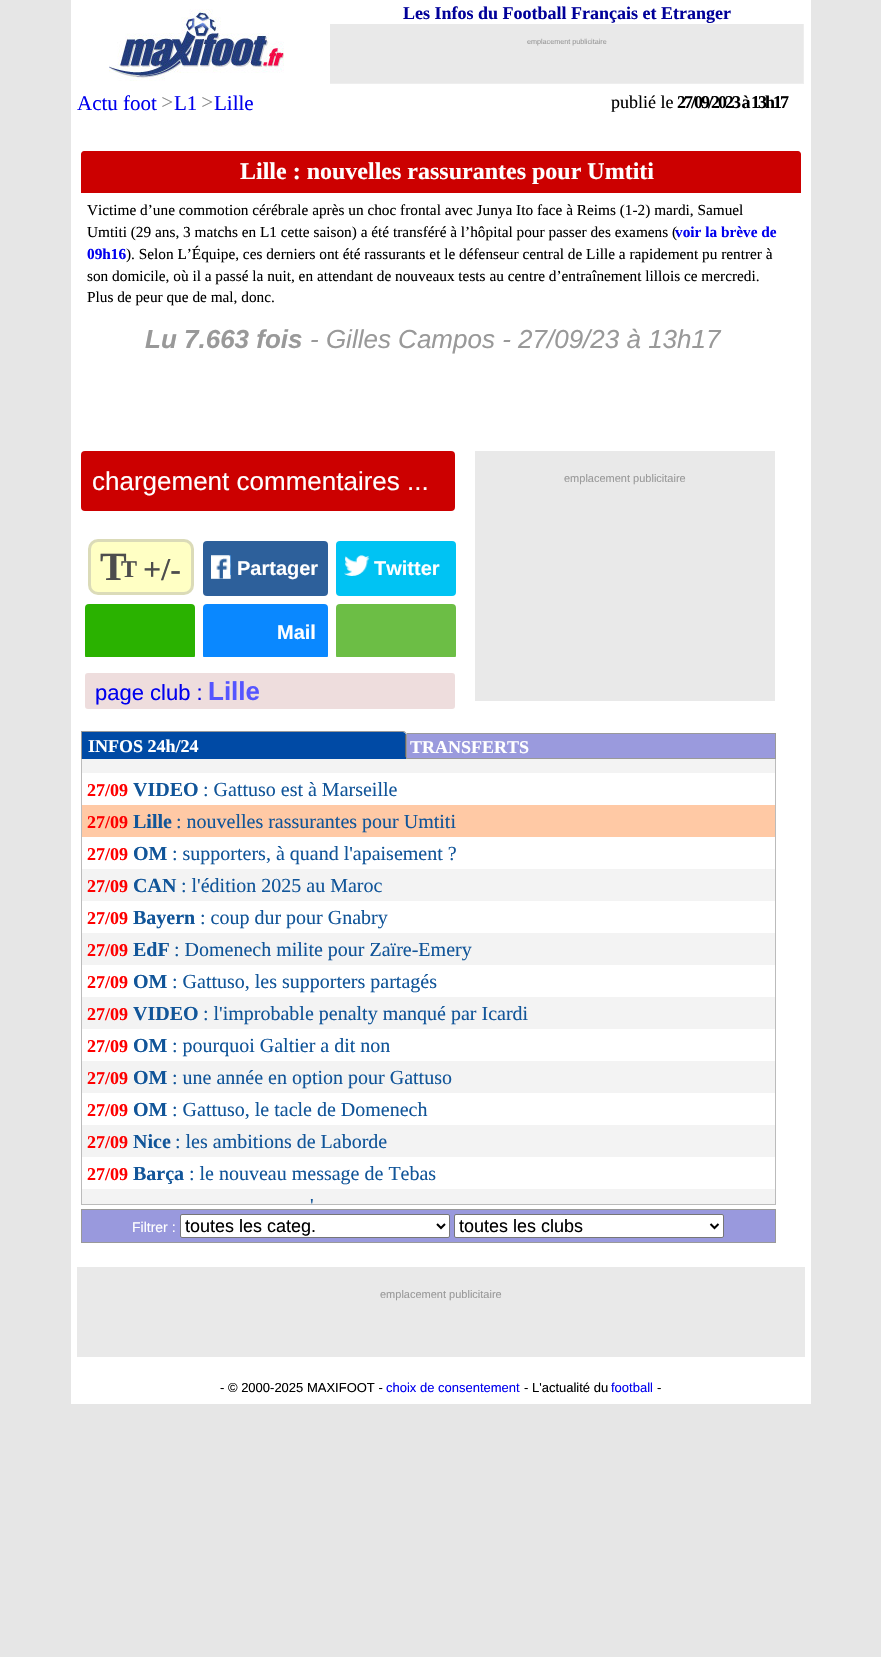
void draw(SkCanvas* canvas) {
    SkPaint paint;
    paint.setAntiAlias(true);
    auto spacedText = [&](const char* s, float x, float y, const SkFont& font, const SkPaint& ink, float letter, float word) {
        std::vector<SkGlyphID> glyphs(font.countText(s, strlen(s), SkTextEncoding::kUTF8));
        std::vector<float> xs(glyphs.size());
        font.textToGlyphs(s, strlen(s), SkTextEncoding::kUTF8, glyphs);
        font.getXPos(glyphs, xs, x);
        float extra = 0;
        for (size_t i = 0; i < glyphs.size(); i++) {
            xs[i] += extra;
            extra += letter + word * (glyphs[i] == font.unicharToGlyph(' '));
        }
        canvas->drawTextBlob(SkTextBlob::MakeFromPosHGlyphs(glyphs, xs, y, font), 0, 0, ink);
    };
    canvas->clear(0xFFE6E6E6);
    paint.setColor(0xFFFFFFFF);
    canvas->drawRect(SkRect::MakeXYWH(71, 0, 740, 1404), paint);
    SkFont font1(fontMgr->matchFamilyStyle("Liberation Serif", SkFontStyle::Bold()), 18);
    font1.setSubpixel(true);
    paint.setColor(0xFF000099);
    canvas->drawString("Les Infos du Football Français et Etranger", 403, 19, font1, paint);
    paint.setColor(0xFFEEEEEE);
    canvas->drawRect(SkRect::MakeXYWH(330, 24, 474, 60), paint);
    paint.setColor(0xFFE9E9E9);
    canvas->drawRect(SkRect::MakeXYWH(330, 24, 473, 59), paint);
    SkFont font2(fontMgr->matchFamilyStyle("Liberation Sans", SkFontStyle::Normal()), 7.2f);
    font2.setSubpixel(true);
    paint.setColor(0xFF999999);
    canvas->drawString("emplacement publicitaire", 527, 44, font2, paint);
    canvas->drawImageRect(SkImages::DeferredFromEncodedData(SkData::MakeFromFileName("img1.png")), SkRect::MakeXYWH(109, 9, 175, 72), SkSamplingOptions());
    SkFont font3(fontMgr->matchFamilyStyle("Liberation Serif", SkFontStyle::Normal()), 21);
    font3.setSubpixel(true);
    paint.setColor(0xFF0000EE);
    canvas->drawString("Actu foot", 77, 110, font3, paint);
    SkFont font4(fontMgr->matchFamilyStyle("Liberation Serif", SkFontStyle::Italic()), 21);
    font4.setSubpixel(true);
    paint.setColor(0xFF888888);
    spacedText(">", 160, 109, font4, paint, -7, 0);
    paint.setColor(0xFF0000EE);
    canvas->drawString("L1", 174, 110, font3, paint);
    paint.setColor(0xFF888888);
    spacedText(">", 200, 109, font4, paint, -7, 0);
    paint.setColor(0xFF0000EE);
    canvas->drawString("Lille", 214, 110, font3, paint);
    SkFont font5(fontMgr->matchFamilyStyle("Liberation Serif", SkFontStyle::Normal()), 18);
    font5.setSubpixel(true);
    paint.setColor(0xFF000000);
    canvas->drawString("publié le", 611, 108, font5, paint);
    spacedText("27/09/2023 à 13h17", 677, 108, font1, paint, -2, 0);
    paint.setColor(0xFFCC0000);
    canvas->drawPath(SkPathBuilder().moveTo(84, 151).lineTo(798, 151).cubicTo(799.5f, 151, 801, 152.5f, 801, 154).lineTo(801, 193).lineTo(81, 193).lineTo(81, 154).cubicTo(81, 152.5f, 82.5f, 151, 84, 151).close().detach(), paint);
    SkFont font6(fontMgr->matchFamilyStyle("Liberation Serif", SkFontStyle::Bold()), 24);
    font6.setSubpixel(true);
    paint.setColor(0xFFFFFFFF);
    canvas->drawString("Lille : nouvelles rassurantes pour Umtiti", 240, 179, font6, paint);
    SkFont font7(fontMgr->matchFamilyStyle("Liberation Serif", SkFontStyle::Normal()), 15.3f);
    font7.setSubpixel(true);
    paint.setColor(0xFF000000);
    canvas->drawString("Victime d’une commotion cérébrale après un choc frontal avec Junya Ito face à Reims (1-2) mardi, Samuel", 87, 215, font7, paint);
    canvas->drawString("Umtiti (29 ans, 3 matchs en L1 cette saison) a été transféré à l’hôpital pour passer des examens (", 87, 237, font7, paint);
    SkFont font8(fontMgr->matchFamilyStyle("Liberation Serif", SkFontStyle::Bold()), 15.3f);
    font8.setSubpixel(true);
    paint.setColor(0xFF0000EE);
    canvas->drawString("voir la brève de", 675, 237, font8, paint);
    canvas->drawString("09h16", 87, 259, font8, paint);
    paint.setColor(0xFF000000);
    canvas->drawString("). Selon L’Équipe, ces derniers ont été rassurants et le défenseur central de Lille a rapidement pu rentrer à", 126, 259, font7, paint);
    canvas->drawString("son domicile, où il a passé la nuit, en attendant de nouveaux tests au centre d’entraînement lillois ce mercredi.", 87, 281, font7, paint);
    canvas->drawString("Plus de peur que de mal, donc.", 87, 302, font7, paint);
    SkFont font9(fontMgr->matchFamilyStyle("Liberation Sans", SkFontStyle::BoldItalic()), 26);
    font9.setSubpixel(true);
    paint.setColor(0xFF999999);
    canvas->drawString("Lu 7.663 fois", 145, 348, font9, paint);
    SkFont font10(fontMgr->matchFamilyStyle("Liberation Sans", SkFontStyle::Italic()), 26);
    font10.setSubpixel(true);
    canvas->drawString("- Gilles Campos - 27/09/23 à 13h17", 310, 348, font10, paint);
    paint.setColor(0xFFCC0000);
    canvas->drawRoundRect(SkRect::MakeXYWH(81, 451, 374, 60), 4, 4, paint);
    SkFont font11(fontMgr->matchFamilyStyle("Liberation Sans", SkFontStyle::Normal()), 26);
    font11.setSubpixel(true);
    paint.setColor(0xFFFFFFFF);
    canvas->drawString("chargement commentaires ...", 92, 490, font11, paint);
    paint.setColor(0xFFFFFFC4);
    canvas->drawRoundRect(SkRect::MakeXYWH(89.5f, 540.5f, 103, 53), 8.5f, 8.5f, paint);
    paint.setStyle(SkPaint::kStroke_Style);
    paint.setStrokeWidth(3);
    paint.setColor(0xFFDBDBB8);
    canvas->drawRoundRect(SkRect::MakeXYWH(89.5f, 540.5f, 103, 53), 8.5f, 8.5f, paint);
    SkFont font12(fontMgr->matchFamilyStyle("Liberation Serif", SkFontStyle::Bold()), 40);
    font12.setSubpixel(true);
    paint.setStyle(SkPaint::kFill_Style);
    paint.setColor(0xFF4D4D4D);
    canvas->drawString("T", 100, 580, font12, paint);
    canvas->drawString("T", 121, 577, font6, paint);
    SkFont font13(fontMgr->matchFamilyStyle("Liberation Serif", SkFontStyle::Bold()), 32);
    font13.setSubpixel(true);
    canvas->drawString("+/-", 143, 580, font13, paint);
    paint.setColor(0xFF2D609B);
    canvas->drawRoundRect(SkRect::MakeXYWH(203, 541, 125, 55), 4, 4, paint);
    canvas->drawImageRect(SkImages::DeferredFromEncodedData(SkData::MakeFromFileName("img2.png")), SkRect::MakeXYWH(211, 555, 20, 24), SkSamplingOptions());
    SkFont font14(fontMgr->matchFamilyStyle("Liberation Sans", SkFontStyle::Bold()), 20);
    font14.setSubpixel(true);
    paint.setColor(0xFFFFFFFF);
    canvas->drawString("Partager", 237, 575, font14, paint);
    paint.setColor(0xFF00C3F3);
    canvas->drawRoundRect(SkRect::MakeXYWH(336, 541, 120, 55), 4, 4, paint);
    canvas->drawImageRect(SkImages::DeferredFromEncodedData(SkData::MakeFromFileName("img3.png")), SkRect::MakeXYWH(344, 555, 26, 21), SkSamplingOptions());
    paint.setColor(0xFFFFFFFF);
    canvas->drawString("Twitter", 374, 575, font14, paint);
    canvas->save();
    canvas->clipRect(SkRect::MakeXYWH(81, 537, 380, 120));
    paint.setColor(0xFF2AB200);
    canvas->drawRoundRect(SkRect::MakeXYWH(85, 604, 110, 55), 4, 4, paint);
    paint.setColor(0xFF0A88FF);
    canvas->drawRoundRect(SkRect::MakeXYWH(203, 604, 125, 55), 4, 4, paint);
    canvas->restore();
    paint.setColor(0xFFFFFFFF);
    canvas->drawString("Mail", 277, 639, font14, paint);
    canvas->save();
    canvas->clipRect(SkRect::MakeXYWH(81, 537, 380, 120));
    paint.setColor(0xFF6CBE45);
    canvas->drawRoundRect(SkRect::MakeXYWH(336, 604, 120, 55), 4, 4, paint);
    canvas->restore();
    paint.setColor(0xFFEEDDDD);
    canvas->drawRoundRect(SkRect::MakeXYWH(85, 673, 370, 36), 3, 3, paint);
    SkFont font15(fontMgr->matchFamilyStyle("Liberation Sans", SkFontStyle::Normal()), 22);
    font15.setSubpixel(true);
    paint.setColor(0xFF0000EE);
    canvas->drawString("page club :", 95, 700, font15, paint);
    SkFont font16(fontMgr->matchFamilyStyle("Liberation Sans", SkFontStyle::Bold()), 26);
    font16.setSubpixel(true);
    paint.setColor(0xFF5555FF);
    canvas->drawString("Lille", 208, 700, font16, paint);
    paint.setColor(0xFFE9E9E9);
    canvas->drawRect(SkRect::MakeXYWH(475, 451, 300, 250), paint);
    SkFont font17(fontMgr->matchFamilyStyle("Liberation Sans", SkFontStyle::Normal()), 11);
    font17.setSubpixel(true);
    paint.setColor(0xFF999999);
    canvas->drawString("emplacement publicitaire", 564, 482, font17, paint);
    paint.setColor(0xFF004AA5);
    canvas->drawPath(SkPathBuilder().moveTo(82, 732).lineTo(403, 732).cubicTo(404.5f, 732, 406, 733.5f, 406, 735).lineTo(406, 759).lineTo(82, 759).close().detach(), paint);
    paint.setColor(0xFF999999);
    canvas->drawPath(SkPathBuilder(SkPathFillType::kEvenOdd).moveTo(81, 731).lineTo(403, 731).cubicTo(405, 731, 407, 733, 407, 735).lineTo(407, 759).lineTo(81, 759).close().moveTo(82, 732).lineTo(403, 732).cubicTo(405, 732, 406, 733, 406, 735).lineTo(406, 759).lineTo(82, 759).close().detach(), paint);
    paint.setColor(0xFF666666);
    canvas->drawRect(SkRect::MakeXYWH(405, 735, 1, 22), paint);
    paint.setColor(0xFFFFFFFF);
    canvas->drawString("INFOS 24h/24", 88, 752, font1, paint);
    paint.setColor(0xFF9A9ADD);
    canvas->drawRect(SkRect::MakeXYWH(407, 734, 368, 24), paint);
    paint.setColor(0xFF999999);
    canvas->drawRect(SkRect::MakeXYWH(407, 733, 369, 1), paint);
    canvas->drawRect(SkRect::MakeXYWH(775, 733, 1, 26), paint);
    canvas->drawRect(SkRect::MakeXYWH(407, 758, 369, 1), paint);
    paint.setColor(0xFFFFFFFF);
    canvas->drawString("TRANSFERTS", 410, 753, font1, paint);
    paint.setColor(0xFFBBBBBB);
    canvas->drawRect(SkRect::MakeXYWH(775, 759, 1, 446), paint);
    canvas->drawRect(SkRect::MakeXYWH(81, 1204, 695, 1), paint);
    canvas->drawRect(SkRect::MakeXYWH(81, 759, 1, 446), paint);
    paint.setColor(0xFFF3F3F3);
    canvas->drawRect(SkRect::MakeXYWH(82, 759, 693, 14), paint);
    paint.setColor(0xFFFE0000);
    canvas->drawString("27/09", 87, 796, font1, paint);
    SkFont font18(fontMgr->matchFamilyStyle("Liberation Serif", SkFontStyle::Bold()), 20);
    font18.setSubpixel(true);
    paint.setColor(0xFF115599);
    canvas->drawString("VIDEO", 133, 796, font18, paint);
    SkFont font19(fontMgr->matchFamilyStyle("Liberation Serif", SkFontStyle::Normal()), 20);
    font19.setSubpixel(true);
    canvas->drawString(": Gattuso est à Marseille", 203, 796, font19, paint);
    paint.setColor(0xFFFFC9A5);
    canvas->drawRect(SkRect::MakeXYWH(82, 805, 693, 32), paint);
    paint.setColor(0xFFFE0000);
    canvas->drawString("27/09", 87, 828, font1, paint);
    paint.setColor(0xFF115599);
    canvas->drawString("Lille", 133, 828, font18, paint);
    canvas->drawString(": nouvelles rassurantes pour Umtiti", 176, 828, font19, paint);
    paint.setColor(0xFFFE0000);
    canvas->drawString("27/09", 87, 860, font1, paint);
    paint.setColor(0xFF115599);
    canvas->drawString("OM", 133, 860, font18, paint);
    canvas->drawString(": supporters, à quand l'apaisement ?", 172, 860, font19, paint);
    paint.setColor(0xFFF3F3F3);
    canvas->drawRect(SkRect::MakeXYWH(82, 869, 693, 32), paint);
    paint.setColor(0xFFFE0000);
    canvas->drawString("27/09", 87, 892, font1, paint);
    paint.setColor(0xFF115599);
    canvas->drawString("CAN", 133, 892, font18, paint);
    canvas->drawString(": l'édition 2025 au Maroc", 181, 892, font19, paint);
    paint.setColor(0xFFFE0000);
    canvas->drawString("27/09", 87, 924, font1, paint);
    paint.setColor(0xFF115599);
    canvas->drawString("Bayern", 133, 924, font18, paint);
    canvas->drawString(": coup dur pour Gnabry", 200, 924, font19, paint);
    paint.setColor(0xFFF3F3F3);
    canvas->drawRect(SkRect::MakeXYWH(82, 933, 693, 32), paint);
    paint.setColor(0xFFFE0000);
    canvas->drawString("27/09", 87, 956, font1, paint);
    paint.setColor(0xFF115599);
    canvas->drawString("EdF", 133, 956, font18, paint);
    canvas->drawString(": Domenech milite pour Zaïre-Emery", 174, 956, font19, paint);
    paint.setColor(0xFFFE0000);
    canvas->drawString("27/09", 87, 988, font1, paint);
    paint.setColor(0xFF115599);
    canvas->drawString("OM", 133, 988, font18, paint);
    canvas->drawString(": Gattuso, les supporters partagés", 172, 988, font19, paint);
    paint.setColor(0xFFF3F3F3);
    canvas->drawRect(SkRect::MakeXYWH(82, 997, 693, 32), paint);
    paint.setColor(0xFFFE0000);
    canvas->drawString("27/09", 87, 1020, font1, paint);
    paint.setColor(0xFF115599);
    canvas->drawString("VIDEO", 133, 1020, font18, paint);
    canvas->drawString(": l'improbable penalty manqué par Icardi", 203, 1020, font19, paint);
    paint.setColor(0xFFFE0000);
    canvas->drawString("27/09", 87, 1052, font1, paint);
    paint.setColor(0xFF115599);
    canvas->drawString("OM", 133, 1052, font18, paint);
    canvas->drawString(": pourquoi Galtier a dit non", 172, 1052, font19, paint);
    paint.setColor(0xFFF3F3F3);
    canvas->drawRect(SkRect::MakeXYWH(82, 1061, 693, 32), paint);
    paint.setColor(0xFFFE0000);
    canvas->drawString("27/09", 87, 1084, font1, paint);
    paint.setColor(0xFF115599);
    canvas->drawString("OM", 133, 1084, font18, paint);
    canvas->drawString(": une année en option pour Gattuso", 172, 1084, font19, paint);
    paint.setColor(0xFFFE0000);
    canvas->drawString("27/09", 87, 1116, font1, paint);
    paint.setColor(0xFF115599);
    canvas->drawString("OM", 133, 1116, font18, paint);
    canvas->drawString(": Gattuso, le tacle de Domenech", 172, 1116, font19, paint);
    paint.setColor(0xFFF3F3F3);
    canvas->drawRect(SkRect::MakeXYWH(82, 1125, 693, 32), paint);
    paint.setColor(0xFFFE0000);
    canvas->drawString("27/09", 87, 1148, font1, paint);
    paint.setColor(0xFF115599);
    canvas->drawString("Nice", 133, 1148, font18, paint);
    canvas->drawString(": les ambitions de Laborde", 175, 1148, font19, paint);
    paint.setColor(0xFFFE0000);
    canvas->drawString("27/09", 87, 1180, font1, paint);
    paint.setColor(0xFF115599);
    canvas->drawString("Barça", 133, 1180, font18, paint);
    canvas->drawString(": le nouveau message de Tebas", 189, 1180, font19, paint);
    paint.setColor(0xFFF3F3F3);
    canvas->drawRect(SkRect::MakeXYWH(82, 1189, 693, 15), paint);
    paint.setColor(0xFF115599);
    canvas->drawString("'", 310, 1212, font19, paint);
    paint.setColor(0xFF9999DD);
    canvas->drawRect(SkRect::MakeXYWH(81.5f, 1209.5f, 694, 33), paint);
    paint.setStyle(SkPaint::kStroke_Style);
    paint.setStrokeWidth(1);
    paint.setColor(0xFF999999);
    canvas->drawRect(SkRect::MakeXYWH(81.5f, 1209.5f, 694, 33), paint);
    SkFont font20(fontMgr->matchFamilyStyle("Liberation Sans", SkFontStyle::Normal()), 14);
    font20.setSubpixel(true);
    paint.setStyle(SkPaint::kFill_Style);
    paint.setColor(0xFFFFFFFF);
    canvas->drawString("Filtrer :", 132, 1232, font20, paint);
    canvas->drawRoundRect(SkRect::MakeXYWH(180.5f, 1214.5f, 269, 23), 1.5f, 1.5f, paint);
    paint.setStyle(SkPaint::kStroke_Style);
    paint.setColor(0xFF767676);
    canvas->drawRoundRect(SkRect::MakeXYWH(180.5f, 1214.5f, 269, 23), 1.5f, 1.5f, paint);
    paint.setStrokeWidth(2);
    paint.setColor(0xFF000000);
    canvas->drawPath(SkPathBuilder().moveTo(437, 1224).lineTo(441, 1228).lineTo(445, 1224).detach(), paint);
    SkFont font21(fontMgr->matchFamilyStyle("Liberation Sans", SkFontStyle::Normal()), 18);
    font21.setSubpixel(true);
    paint.setStyle(SkPaint::kFill_Style);
    canvas->drawString("toutes les categ.", 185, 1232, font21, paint);
    paint.setColor(0xFFFFFFFF);
    canvas->drawRoundRect(SkRect::MakeXYWH(454.5f, 1214.5f, 269, 23), 1.5f, 1.5f, paint);
    paint.setStyle(SkPaint::kStroke_Style);
    paint.setStrokeWidth(1);
    paint.setColor(0xFF767676);
    canvas->drawRoundRect(SkRect::MakeXYWH(454.5f, 1214.5f, 269, 23), 1.5f, 1.5f, paint);
    paint.setStrokeWidth(2);
    paint.setColor(0xFF000000);
    canvas->drawPath(SkPathBuilder().moveTo(710.5f, 1224).lineTo(714.5f, 1228).lineTo(718.5f, 1224).detach(), paint);
    paint.setStyle(SkPaint::kFill_Style);
    canvas->drawString("toutes les clubs", 459, 1232, font21, paint);
    paint.setColor(0xFFE9E9E9);
    canvas->drawRect(SkRect::MakeXYWH(77, 1267, 728, 90), paint);
    paint.setColor(0xFF999999);
    canvas->drawString("emplacement publicitaire", 380, 1298, font17, paint);
    SkFont font22(fontMgr->matchFamilyStyle("Liberation Sans", SkFontStyle::Normal()), 13);
    font22.setSubpixel(true);
    paint.setColor(0xFF000000);
    canvas->drawString("- © 2000-2025 MAXIFOOT -", 220, 1392, font22, paint);
    paint.setColor(0xFF0000EE);
    canvas->drawString("choix de consentement", 386, 1392, font22, paint);
    paint.setColor(0xFF000000);
    canvas->drawString("- L'actualité du", 524, 1392, font22, paint);
    paint.setColor(0xFF0000EE);
    canvas->drawString("football", 611, 1392, font22, paint);
    paint.setColor(0xFF000000);
    canvas->drawString("-", 657, 1392, font22, paint);
}
